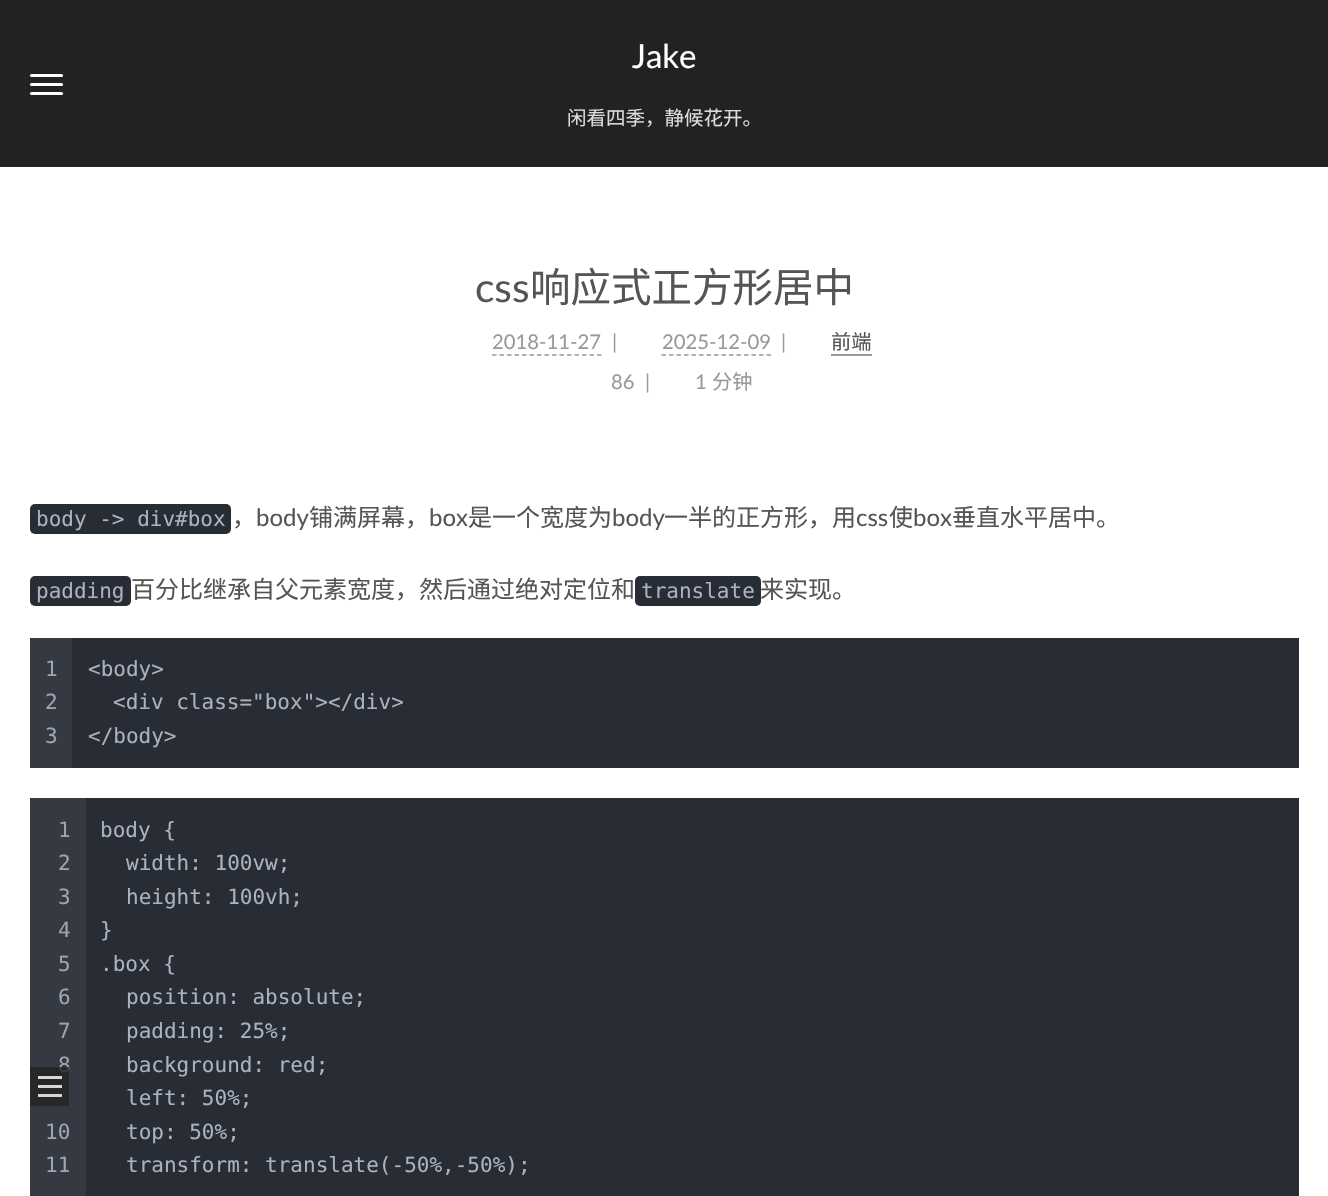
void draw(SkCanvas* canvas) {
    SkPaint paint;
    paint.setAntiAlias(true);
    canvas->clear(0xFF222222);
    paint.setColor(0xFFFFFFFF);
    canvas->drawRoundRect(SkRect::MakeXYWH(30, 74, 33, 3), 1.5f, 1.5f, paint);
    canvas->drawRoundRect(SkRect::MakeXYWH(30, 83, 33, 3), 1.5f, 1.5f, paint);
    canvas->drawRoundRect(SkRect::MakeXYWH(30, 92, 33, 3), 1.5f, 1.5f, paint);
    SkFont font1(fontMgr->matchFamilyStyle("Lato", SkFontStyle::Normal()), 33);
    font1.setSubpixel(true);
    canvas->drawString("Jake", 632, 68, font1, paint);
    SkFont font2(fontMgr->matchFamilyStyle("Noto Sans CJK SC", SkFontStyle::Normal()), 19.5f);
    font2.setSubpixel(true);
    paint.setColor(0xFFDDDDDD);
    canvas->drawString("闲看四季，静候花开。", 567, 125, font2, paint);
    paint.setColor(0xFFFFFFFF);
    canvas->drawRect(SkRect::MakeXYWH(0, 167, 1328, 1029), paint);
    SkFont font3(fontMgr->matchFamilyStyle("Lato", SkFontStyle::Normal()), 40.5f);
    font3.setSubpixel(true);
    paint.setColor(0xFF555555);
    canvas->drawString("css", 475, 302, font3, paint);
    SkFont font4(fontMgr->matchFamilyStyle("Noto Sans CJK SC", SkFontStyle::Normal()), 40.5f);
    font4.setSubpixel(true);
    canvas->drawString("响应式正方形居中", 530, 302, font4, paint);
    SkFont font5(fontMgr->matchFamilyStyle("Lato", SkFontStyle::Normal()), 20.25f);
    font5.setSubpixel(true);
    paint.setColor(0xFF999999);
    canvas->drawString("2018-11-27", 492, 349, font5, paint);
    paint.setStyle(SkPaint::kStroke_Style);
    paint.setStrokeWidth(1.5f);
    paint.setPathEffect(SkDashPathEffect::Make({{4.5f, 3}}, 0));
    canvas->drawPath(SkPathBuilder().moveTo(492, 355).lineTo(601.5f, 355).detach(), paint);
    paint.setPathEffect(nullptr);
    paint.setStyle(SkPaint::kFill_Style);
    canvas->drawString("|", 612, 349, font5, paint);
    canvas->drawString("2025-12-09", 662, 349, font5, paint);
    paint.setStyle(SkPaint::kStroke_Style);
    paint.setPathEffect(SkDashPathEffect::Make({{4.5f, 3}}, 0));
    canvas->drawPath(SkPathBuilder().moveTo(661.5f, 355).lineTo(771, 355).detach(), paint);
    paint.setPathEffect(nullptr);
    paint.setStyle(SkPaint::kFill_Style);
    canvas->drawString("|", 781, 349, font5, paint);
    SkFont font6(fontMgr->matchFamilyStyle("Noto Sans CJK SC", SkFontStyle::Normal()), 20.25f);
    font6.setSubpixel(true);
    paint.setColor(0xFF555555);
    canvas->drawString("前端", 831, 349, font6, paint);
    paint.setColor(0xFF999999);
    canvas->drawRect(SkRect::MakeXYWH(831, 354, 41, 2), paint);
    canvas->drawString("86", 611, 389, font5, paint);
    canvas->drawString("|", 645, 389, font5, paint);
    canvas->drawString("1", 695, 389, font5, paint);
    canvas->drawString("分钟", 712, 389, font6, paint);
    paint.setColor(0xFF282C34);
    canvas->drawRoundRect(SkRect::MakeXYWH(30, 504, 201, 30), 5, 5, paint);
    SkFont font7(fontMgr->matchFamilyStyle("DejaVu Sans Mono", SkFontStyle::Normal()), 21);
    font7.setSubpixel(true);
    paint.setColor(0xFFABB2BF);
    canvas->drawString("body -> div#box", 36, 526, font7, paint);
    SkFont font8(fontMgr->matchFamilyStyle("Noto Sans CJK SC", SkFontStyle::Normal()), 24);
    font8.setSubpixel(true);
    paint.setColor(0xFF555555);
    canvas->drawString("，", 232, 526, font8, paint);
    SkFont font9(fontMgr->matchFamilyStyle("Lato", SkFontStyle::Normal()), 24);
    font9.setSubpixel(true);
    canvas->drawString("body", 256, 526, font9, paint);
    canvas->drawString("铺满屏幕，", 309, 526, font8, paint);
    canvas->drawString("box", 429, 526, font9, paint);
    canvas->drawString("是一个宽度为", 468, 526, font8, paint);
    canvas->drawString("body", 612, 526, font9, paint);
    canvas->drawString("一半的正方形，用", 664, 526, font8, paint);
    canvas->drawString("css", 856, 526, font9, paint);
    canvas->drawString("使", 889, 526, font8, paint);
    canvas->drawString("box", 913, 526, font9, paint);
    canvas->drawString("垂直水平居中。", 952, 526, font8, paint);
    paint.setColor(0xFF282C34);
    canvas->drawRoundRect(SkRect::MakeXYWH(30, 576, 101, 30), 5, 5, paint);
    paint.setColor(0xFFABB2BF);
    canvas->drawString("padding", 36, 598, font7, paint);
    paint.setColor(0xFF555555);
    canvas->drawString("百分比继承自父元素宽度，然后通过绝对定位和", 131, 598, font8, paint);
    paint.setColor(0xFF282C34);
    canvas->drawRoundRect(SkRect::MakeXYWH(635, 576, 126, 30), 5, 5, paint);
    paint.setColor(0xFFABB2BF);
    canvas->drawString("translate", 641, 598, font7, paint);
    paint.setColor(0xFF555555);
    canvas->drawString("来实现。", 760, 598, font8, paint);
    paint.setColor(0xFF282C34);
    canvas->drawRect(SkRect::MakeXYWH(72, 638, 1227, 130), paint);
    paint.setColor(0xFF353941);
    canvas->drawRect(SkRect::MakeXYWH(30, 638, 42, 130), paint);
    paint.setColor(0xFF9DA4B1);
    canvas->drawString("1", 45, 676, font7, paint);
    canvas->drawString("2", 45, 709, font7, paint);
    canvas->drawString("3", 45, 743, font7, paint);
    paint.setColor(0xFFABB2BF);
    canvas->drawString("<body>", 88, 676, font7, paint);
    canvas->drawString("<div class=\"box\"></div>", 113, 709, font7, paint);
    canvas->drawString("</body>", 88, 743, font7, paint);
    paint.setColor(0xFF282C34);
    canvas->drawRect(SkRect::MakeXYWH(86, 798, 1213, 398), paint);
    paint.setColor(0xFF353941);
    canvas->drawRect(SkRect::MakeXYWH(30, 798, 56, 398), paint);
    paint.setColor(0xFF9DA4B1);
    canvas->drawString("1", 58, 837, font7, paint);
    canvas->drawString("2", 58, 870, font7, paint);
    canvas->drawString("3", 58, 904, font7, paint);
    canvas->drawString("4", 58, 937, font7, paint);
    canvas->drawString("5", 58, 971, font7, paint);
    canvas->drawString("6", 58, 1004, font7, paint);
    canvas->drawString("7", 58, 1038, font7, paint);
    canvas->drawString("8", 58, 1072, font7, paint);
    canvas->drawString("10", 45, 1139, font7, paint);
    canvas->drawString("11", 45, 1172, font7, paint);
    paint.setColor(0xFFABB2BF);
    canvas->drawString("body {", 100, 837, font7, paint);
    canvas->drawString("width: 100vw;", 126, 870, font7, paint);
    canvas->drawString("height: 100vh;", 126, 904, font7, paint);
    canvas->drawString("}", 100, 937, font7, paint);
    canvas->drawString(".box {", 100, 971, font7, paint);
    canvas->drawString("position: absolute;", 126, 1004, font7, paint);
    canvas->drawString("padding: 25%;", 126, 1038, font7, paint);
    canvas->drawString("background: red;", 126, 1072, font7, paint);
    canvas->drawString("left: 50%;", 126, 1105, font7, paint);
    canvas->drawString("top: 50%;", 126, 1139, font7, paint);
    canvas->drawString("transform: translate(-50%,-50%);", 126, 1172, font7, paint);
    paint.setColor(0xCC222222);
    canvas->drawRect(SkRect::MakeXYWH(30, 1067, 39, 39), paint);
    paint.setColor(0xFFD7D7D9);
    canvas->drawRect(SkRect::MakeXYWH(38, 1076, 24, 3), paint);
    canvas->drawRect(SkRect::MakeXYWH(38, 1085, 24, 3), paint);
    paint.setColor(0xCCFFFFFF);
    canvas->drawRect(SkRect::MakeXYWH(38, 1094, 24, 3), paint);
}
